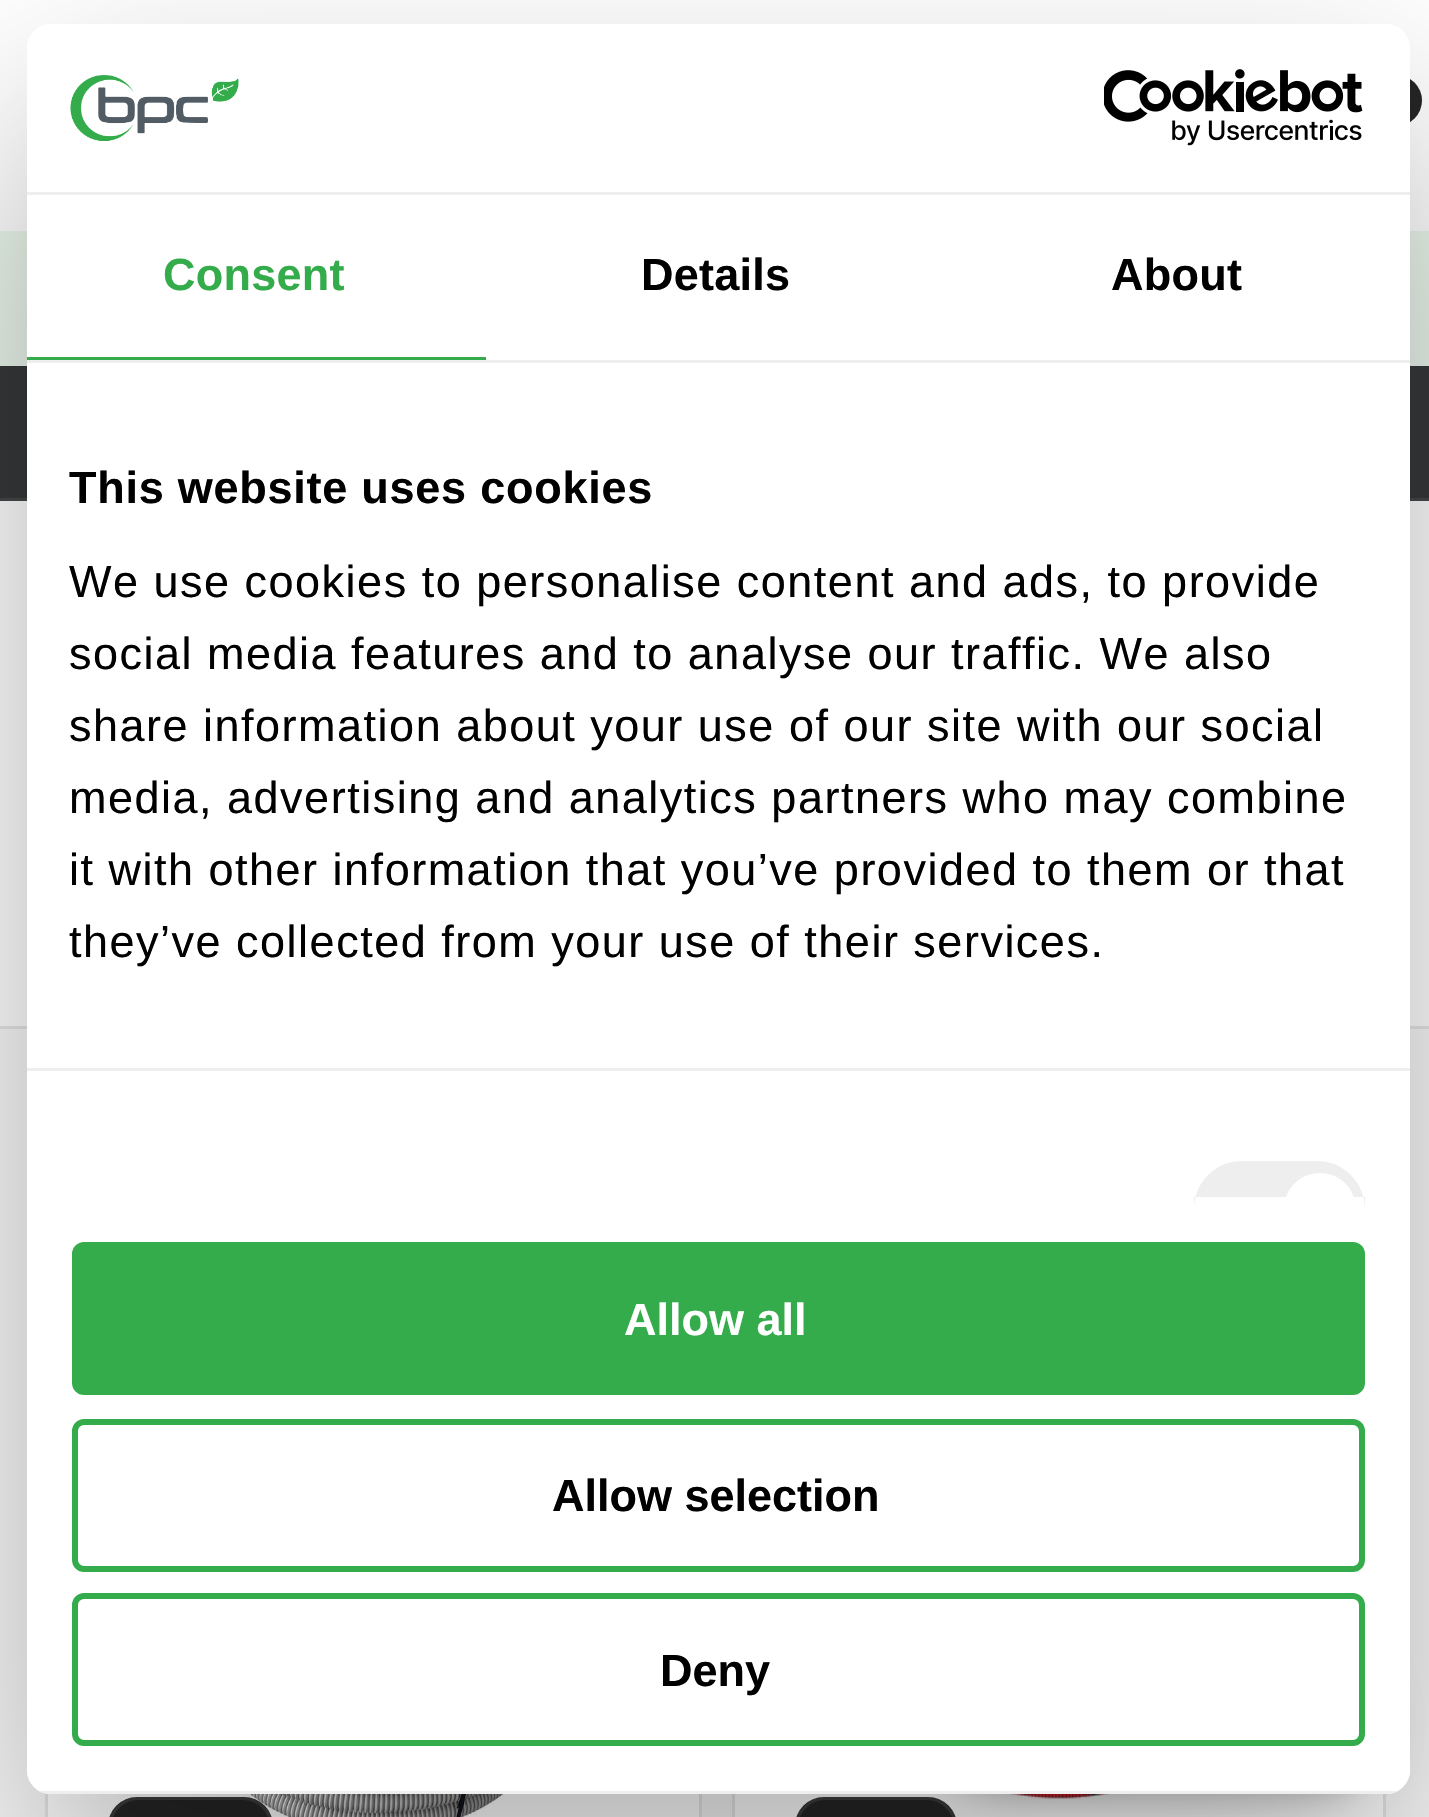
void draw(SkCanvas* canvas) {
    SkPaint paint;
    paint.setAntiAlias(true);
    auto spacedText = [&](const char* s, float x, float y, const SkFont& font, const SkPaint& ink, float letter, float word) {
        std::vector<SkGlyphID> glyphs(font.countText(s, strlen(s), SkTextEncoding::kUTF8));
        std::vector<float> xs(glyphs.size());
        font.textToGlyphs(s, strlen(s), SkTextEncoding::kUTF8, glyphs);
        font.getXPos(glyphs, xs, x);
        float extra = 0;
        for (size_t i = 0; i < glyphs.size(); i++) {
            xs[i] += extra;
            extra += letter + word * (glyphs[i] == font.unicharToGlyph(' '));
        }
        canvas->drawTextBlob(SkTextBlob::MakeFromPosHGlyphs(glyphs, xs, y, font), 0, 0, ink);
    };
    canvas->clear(0xFFFFFFFF);
    paint.setColor(0xFF252525);
    canvas->drawCircle(1396.5f, 100.5f, 25.5f, paint);
    paint.setColor(0xFFEBF7ED);
    canvas->drawRect(SkRect::MakeXYWH(0, 231, 1429, 135), paint);
    paint.setColor(0xFF363839);
    canvas->drawRect(SkRect::MakeXYWH(0, 366, 1429, 132), paint);
    paint.setColor(0xFF464849);
    canvas->drawRect(SkRect::MakeXYWH(0, 498, 1429, 3), paint);
    paint.setColor(0xFFE7E7E7);
    canvas->drawRect(SkRect::MakeXYWH(0, 1026, 1429, 3), paint);
    paint.setColor(0xFFF9F9F9);
    canvas->drawRect(SkRect::MakeXYWH(0, 1029, 1429, 788), paint);
    paint.setColor(0xFFFFFFFF);
    canvas->drawRect(SkRect::MakeXYWH(48, 1793, 651, 24), paint);
    paint.setStyle(SkPaint::kStroke_Style);
    paint.setStrokeWidth(3);
    paint.setColor(0xFFE7E7E7);
    canvas->drawRect(SkRect::MakeXYWH(46.5f, 1396.5f, 654, 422), paint);
    canvas->drawImageRect(SkImages::DeferredFromEncodedData(SkData::MakeFromFileName("img3.png")), SkRect::MakeXYWH(173, 1794, 400, 23), SkSamplingOptions());
    paint.setStyle(SkPaint::kFill_Style);
    paint.setColor(0xFF252525);
    canvas->drawRoundRect(SkRect::MakeXYWH(108, 1797, 165, 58), 37.5f, 37.5f, paint);
    paint.setStyle(SkPaint::kStroke_Style);
    paint.setColor(0x1AFFFFFF);
    canvas->drawRoundRect(SkRect::MakeXYWH(109.5f, 1798.5f, 162, 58), 36, 36, paint);
    paint.setStyle(SkPaint::kFill_Style);
    paint.setColor(0xFFFFFFFF);
    canvas->drawRect(SkRect::MakeXYWH(735, 1794, 648, 23), paint);
    paint.setStyle(SkPaint::kStroke_Style);
    paint.setColor(0xFFE7E7E7);
    canvas->drawRect(SkRect::MakeXYWH(733.5f, 1396.5f, 651, 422), paint);
    canvas->drawImageRect(SkImages::DeferredFromEncodedData(SkData::MakeFromFileName("img4.png")), SkRect::MakeXYWH(879, 1794, 365, 11), SkSamplingOptions());
    paint.setStyle(SkPaint::kFill_Style);
    paint.setColor(0xFF252525);
    canvas->drawRoundRect(SkRect::MakeXYWH(795, 1797, 162, 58), 37.5f, 37.5f, paint);
    paint.setStyle(SkPaint::kStroke_Style);
    paint.setColor(0x1AFFFFFF);
    canvas->drawRoundRect(SkRect::MakeXYWH(796.5f, 1798.5f, 159, 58), 36, 36, paint);
    canvas->save();
    canvas->clipPath(SkPathBuilder(SkPathFillType::kEvenOdd).moveTo(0, 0).lineTo(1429, 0).lineTo(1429, 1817).lineTo(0, 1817).close().moveTo(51, 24).lineTo(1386, 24).cubicTo(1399.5f, 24, 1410, 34.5f, 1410, 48).lineTo(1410, 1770).cubicTo(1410, 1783.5f, 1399.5f, 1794, 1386, 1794).lineTo(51, 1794).cubicTo(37.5f, 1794, 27, 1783.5f, 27, 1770).lineTo(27, 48).cubicTo(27, 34.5f, 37.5f, 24, 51, 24).close().detach(), true);
    paint.setStyle(SkPaint::kFill_Style);
    paint.setColor(0x4D000000);
    paint.setMaskFilter(SkMaskFilter::MakeBlur(kNormal_SkBlurStyle, 102));
    canvas->drawRoundRect(SkRect::MakeXYWH(27, 120, 1383, 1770), 24, 24, paint);
    paint.setMaskFilter(nullptr);
    canvas->restore();
    paint.setColor(0x40000000);
    paint.setMaskFilter(SkMaskFilter::MakeBlur(kNormal_SkBlurStyle, 18));
    canvas->drawRoundRect(SkRect::MakeXYWH(936, 1650, 447, 144), 72, 72, paint);
    paint.setMaskFilter(nullptr);
    paint.setColor(0xFFFFFFFF);
    canvas->drawRoundRect(SkRect::MakeXYWH(27, 24, 1383, 1770), 24, 24, paint);
    paint.setColor(0xFFEEEEEE);
    canvas->drawRect(SkRect::MakeXYWH(27, 192, 1383, 3), paint);
    canvas->drawImageRect(SkImages::DeferredFromEncodedData(SkData::MakeFromFileName("img1.png")), SkRect::MakeXYWH(70, 75, 169, 66), SkSamplingOptions());
    canvas->drawImageRect(SkImages::DeferredFromEncodedData(SkData::MakeFromFileName("img2.png")), SkRect::MakeXYWH(1104, 69, 259, 77), SkSamplingOptions());
    canvas->drawRect(SkRect::MakeXYWH(27, 360, 1383, 3), paint);
    paint.setColor(0xFF34AC4B);
    canvas->drawRect(SkRect::MakeXYWH(27, 357, 459, 3), paint);
    SkFont font1(fontMgr->matchFamilyStyle("Liberation Sans", SkFontStyle::Bold()), 45);
    font1.setSubpixel(true);
    spacedText("Consent", 163, 290, font1, paint, 0.25f, 0);
    paint.setColor(0xFF000000);
    spacedText("Details", 641, 290, font1, paint, 0.25f, 0);
    spacedText("About", 1111, 290, font1, paint, 0.25f, 0);
    paint.setColor(0xFFEEEEEE);
    canvas->drawRect(SkRect::MakeXYWH(27, 1068, 1383, 3), paint);
    paint.setColor(0xFF000000);
    spacedText("This website uses cookies", 69, 503, font1, paint, 0.75f, 0);
    SkFont font2(fontMgr->matchFamilyStyle("Liberation Sans", SkFontStyle::Normal()), 45);
    font2.setSubpixel(true);
    spacedText("We use cookies to personalise content and ads, to provide", 69, 597, font2, paint, 1.5f, 0);
    spacedText("social media features and to analyse our traffic. We also", 69, 669, font2, paint, 1.5f, 0);
    spacedText("share information about your use of our site with our social", 69, 741, font2, paint, 1.5f, 0);
    spacedText("media, advertising and analytics partners who may combine", 69, 813, font2, paint, 1.5f, 0);
    spacedText("it with other information that you’ve provided to them or that", 69, 885, font2, paint, 1.5f, 0);
    spacedText("they’ve collected from your use of their services.", 69, 957, font2, paint, 1.5f, 0);
    paint.setColor(0xFFEEEEEE);
    canvas->drawPath(SkPathBuilder().moveTo(1242, 1161).lineTo(1317, 1161).cubicTo(1343.5f, 1161, 1365, 1182.5f, 1365, 1209).lineTo(1365, 1197).lineTo(1194, 1197).lineTo(1194, 1209).cubicTo(1194, 1182.5f, 1215.5f, 1161, 1242, 1161).close().detach(), paint);
    paint.setColor(0xFFFFFFFF);
    canvas->drawPath(SkPathBuilder().moveTo(1320, 1173).cubicTo(1340, 1173, 1356, 1189, 1356, 1209).lineTo(1356, 1197).lineTo(1284, 1197).lineTo(1284, 1209).cubicTo(1284, 1189, 1300, 1173, 1320, 1173).close().detach(), paint);
    canvas->save();
    canvas->clipPath(SkPathBuilder().moveTo(51, 24).lineTo(1386, 24).cubicTo(1399.5f, 24, 1410, 34.5f, 1410, 48).lineTo(1410, 1770).cubicTo(1410, 1783.5f, 1399.5f, 1794, 1386, 1794).lineTo(51, 1794).cubicTo(37.5f, 1794, 27, 1783.5f, 27, 1770).lineTo(27, 48).cubicTo(27, 34.5f, 37.5f, 24, 51, 24).close().detach(), true);
    paint.setColor(0xFFEEEEEE);
    canvas->drawRect(SkRect::MakeXYWH(39, 1791, 1359, 3), paint);
    canvas->restore();
    paint.setColor(0xFF34AC4B);
    canvas->drawRoundRect(SkRect::MakeXYWH(75, 1245, 1287, 147), 9, 9, paint);
    paint.setStyle(SkPaint::kStroke_Style);
    paint.setStrokeWidth(6);
    canvas->drawRoundRect(SkRect::MakeXYWH(75, 1245, 1287, 147), 9, 9, paint);
    paint.setStyle(SkPaint::kFill_Style);
    paint.setColor(0xFFFFFFFF);
    canvas->drawString("Allow all", 624, 1335, font1, paint);
    paint.setStyle(SkPaint::kStroke_Style);
    paint.setColor(0xFF34AC4B);
    canvas->drawRoundRect(SkRect::MakeXYWH(75, 1422, 1287, 147), 9, 9, paint);
    paint.setStyle(SkPaint::kFill_Style);
    paint.setColor(0xFF000000);
    canvas->drawString("Allow selection", 552, 1511, font1, paint);
    paint.setStyle(SkPaint::kStroke_Style);
    paint.setColor(0xFF34AC4B);
    canvas->drawRoundRect(SkRect::MakeXYWH(75, 1596, 1287, 147), 9, 9, paint);
    paint.setStyle(SkPaint::kFill_Style);
    paint.setColor(0xFF000000);
    canvas->drawString("Deny", 660, 1686, font1, paint);
}
